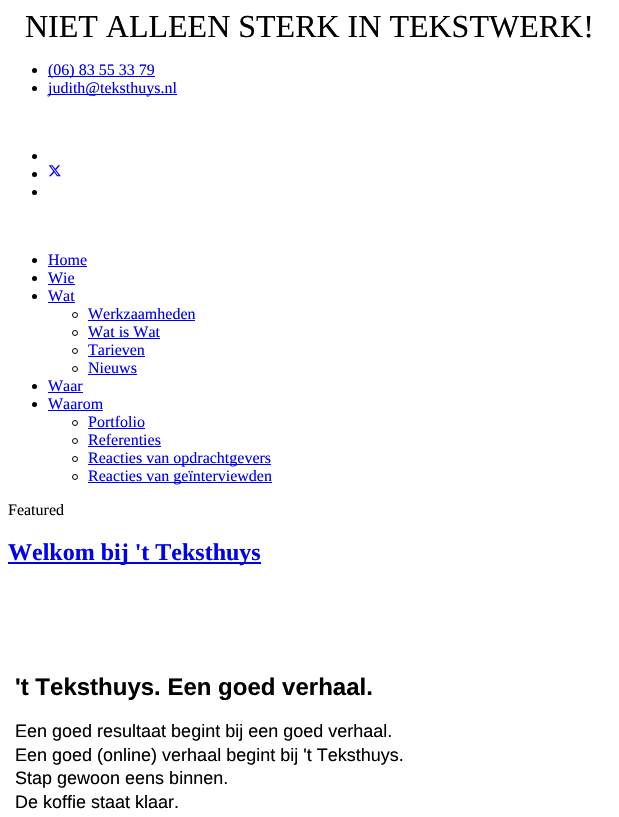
void draw(SkCanvas* canvas) {
    SkPaint paint;
    paint.setAntiAlias(true);
    canvas->clear(0xFFFFFFFF);
    SkFont font1(fontMgr->matchFamilyStyle("Liberation Serif", SkFontStyle::Normal()), 32);
    font1.setSubpixel(true);
    paint.setColor(0xFF000000);
    canvas->drawString("NIET ALLEEN STERK IN TEKSTWERK!", 25, 37, font1, paint);
    canvas->drawCircle(34.5f, 70.5f, 2.5f, paint);
    paint.setColor(0xFF0000EE);
    canvas->drawRect(SkRect::MakeXYWH(48, 76, 107, 1), paint);
    SkFont font2(fontMgr->matchFamilyStyle("Liberation Serif", SkFontStyle::Normal()), 16);
    font2.setSubpixel(true);
    canvas->drawString("(06) 83 55 33 79", 48, 75, font2, paint);
    paint.setColor(0xFF000000);
    canvas->drawCircle(34.5f, 88.5f, 2.5f, paint);
    paint.setColor(0xFF0000EE);
    canvas->drawRect(SkRect::MakeXYWH(48, 94, 129, 1), paint);
    canvas->drawString("judith@teksthuys.nl", 48, 93, font2, paint);
    paint.setColor(0xFF000000);
    canvas->drawCircle(34.5f, 156.5f, 2.5f, paint);
    canvas->drawCircle(34.5f, 174.5f, 2.5f, paint);
    canvas->drawImageRect(SkImages::DeferredFromEncodedData(SkData::MakeFromFileName("img1.png")), SkRect::MakeXYWH(48, 165, 13, 12), SkSamplingOptions());
    canvas->drawCircle(34.5f, 192.5f, 2.5f, paint);
    canvas->drawCircle(34.5f, 260.5f, 2.5f, paint);
    paint.setColor(0xFF0000EE);
    canvas->drawString("Home", 48, 265, font2, paint);
    canvas->drawRect(SkRect::MakeXYWH(48, 266, 39, 1), paint);
    paint.setColor(0xFF000000);
    canvas->drawCircle(34.5f, 278.5f, 2.5f, paint);
    paint.setColor(0xFF0000EE);
    canvas->drawString("Wie", 48, 283, font2, paint);
    canvas->drawRect(SkRect::MakeXYWH(48, 284, 27, 1), paint);
    paint.setColor(0xFF000000);
    canvas->drawCircle(34.5f, 296.5f, 2.5f, paint);
    paint.setColor(0xFF0000EE);
    canvas->drawString("Wat", 48, 301, font2, paint);
    canvas->drawRect(SkRect::MakeXYWH(48, 302, 27, 1), paint);
    paint.setStyle(SkPaint::kStroke_Style);
    paint.setStrokeWidth(1);
    paint.setColor(0xFF000000);
    canvas->drawCircle(75, 315, 2.5f, paint);
    paint.setStyle(SkPaint::kFill_Style);
    paint.setColor(0xFF0000EE);
    canvas->drawString("Werkzaamheden", 88, 319, font2, paint);
    canvas->drawRect(SkRect::MakeXYWH(88, 320, 107, 1), paint);
    paint.setStyle(SkPaint::kStroke_Style);
    paint.setColor(0xFF000000);
    canvas->drawCircle(75, 333, 2.5f, paint);
    paint.setStyle(SkPaint::kFill_Style);
    paint.setColor(0xFF0000EE);
    canvas->drawString("Wat is Wat", 88, 337, font2, paint);
    canvas->drawRect(SkRect::MakeXYWH(88, 338, 72, 1), paint);
    paint.setStyle(SkPaint::kStroke_Style);
    paint.setColor(0xFF000000);
    canvas->drawCircle(75, 351, 2.5f, paint);
    paint.setStyle(SkPaint::kFill_Style);
    paint.setColor(0xFF0000EE);
    canvas->drawString("Tarieven", 88, 355, font2, paint);
    canvas->drawRect(SkRect::MakeXYWH(88, 356, 57, 1), paint);
    paint.setStyle(SkPaint::kStroke_Style);
    paint.setColor(0xFF000000);
    canvas->drawCircle(75, 369, 2.5f, paint);
    paint.setStyle(SkPaint::kFill_Style);
    paint.setColor(0xFF0000EE);
    canvas->drawString("Nieuws", 88, 373, font2, paint);
    canvas->drawRect(SkRect::MakeXYWH(88, 374, 49, 1), paint);
    paint.setColor(0xFF000000);
    canvas->drawCircle(34.5f, 386.5f, 2.5f, paint);
    paint.setColor(0xFF0000EE);
    canvas->drawString("Waar", 48, 391, font2, paint);
    canvas->drawRect(SkRect::MakeXYWH(48, 392, 35, 1), paint);
    paint.setColor(0xFF000000);
    canvas->drawCircle(34.5f, 404.5f, 2.5f, paint);
    paint.setColor(0xFF0000EE);
    canvas->drawString("Waarom", 48, 409, font2, paint);
    canvas->drawRect(SkRect::MakeXYWH(48, 410, 55, 1), paint);
    paint.setStyle(SkPaint::kStroke_Style);
    paint.setColor(0xFF000000);
    canvas->drawCircle(75, 423, 2.5f, paint);
    paint.setStyle(SkPaint::kFill_Style);
    paint.setColor(0xFF0000EE);
    canvas->drawString("Portfolio", 88, 427, font2, paint);
    canvas->drawRect(SkRect::MakeXYWH(88, 428, 57, 1), paint);
    paint.setStyle(SkPaint::kStroke_Style);
    paint.setColor(0xFF000000);
    canvas->drawCircle(75, 441, 2.5f, paint);
    paint.setStyle(SkPaint::kFill_Style);
    paint.setColor(0xFF0000EE);
    canvas->drawString("Referenties", 88, 445, font2, paint);
    canvas->drawRect(SkRect::MakeXYWH(88, 446, 73, 1), paint);
    paint.setStyle(SkPaint::kStroke_Style);
    paint.setColor(0xFF000000);
    canvas->drawCircle(75, 459, 2.5f, paint);
    paint.setStyle(SkPaint::kFill_Style);
    paint.setColor(0xFF0000EE);
    canvas->drawRect(SkRect::MakeXYWH(88, 464, 183, 1), paint);
    canvas->drawString("Reacties van opdrachtgevers", 88, 463, font2, paint);
    paint.setStyle(SkPaint::kStroke_Style);
    paint.setColor(0xFF000000);
    canvas->drawCircle(75, 477, 2.5f, paint);
    paint.setStyle(SkPaint::kFill_Style);
    paint.setColor(0xFF0000EE);
    canvas->drawRect(SkRect::MakeXYWH(88, 482, 184, 1), paint);
    canvas->drawString("Reacties van geïnterviewden", 88, 481, font2, paint);
    paint.setColor(0xFF000000);
    canvas->drawString("Featured", 8, 515, font2, paint);
    paint.setColor(0xFF0000EE);
    canvas->drawRect(SkRect::MakeXYWH(8, 562, 253, 2), paint);
    SkFont font3(fontMgr->matchFamilyStyle("Liberation Serif", SkFontStyle::Bold()), 24);
    font3.setSubpixel(true);
    canvas->drawString("Welkom bij 't Teksthuys", 8, 560, font3, paint);
    SkFont font4(fontMgr->matchFamilyStyle("Liberation Sans", SkFontStyle::Bold()), 24);
    font4.setSubpixel(true);
    paint.setColor(0xFF000000);
    canvas->drawString("'t Teksthuys. Een goed verhaal.", 15, 695, font4, paint);
    SkFont font5(fontMgr->matchFamilyStyle("Liberation Sans", SkFontStyle::Normal()), 18);
    font5.setSubpixel(true);
    canvas->drawString("Een goed resultaat begint bij een goed verhaal.", 15, 737, font5, paint);
    canvas->drawString("Een goed (online) verhaal begint bij 't Teksthuys.", 15, 761, font5, paint);
    canvas->drawString("Stap gewoon eens binnen.", 15, 784, font5, paint);
    canvas->drawString("De koffie staat klaar.", 15, 808, font5, paint);
}
